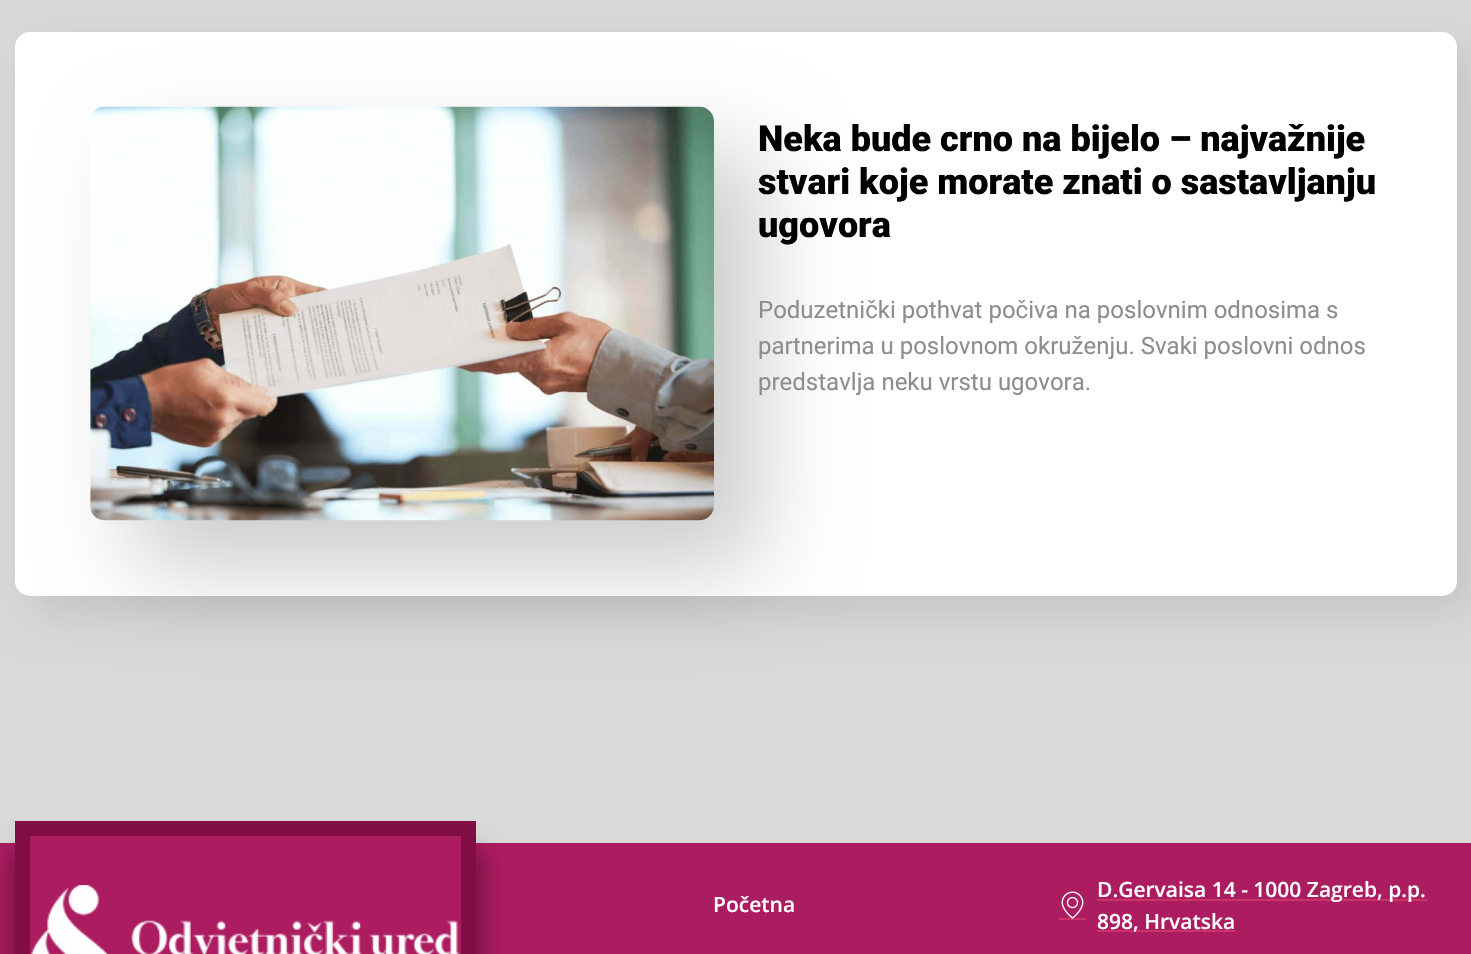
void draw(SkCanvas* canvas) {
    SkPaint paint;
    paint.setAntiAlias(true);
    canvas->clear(0xFFD9D9D9);
    paint.setColor(0x1A000000);
    paint.setMaskFilter(SkMaskFilter::MakeBlur(kNormal_SkBlurStyle, 22.5f));
    canvas->drawRoundRect(SkRect::MakeXYWH(30, 47, 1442, 564), 15, 15, paint);
    paint.setMaskFilter(nullptr);
    paint.setColor(0xFFFFFFFF);
    canvas->drawRoundRect(SkRect::MakeXYWH(15, 32, 1442, 564), 15, 15, paint);
    paint.setColor(0x33000000);
    paint.setMaskFilter(SkMaskFilter::MakeBlur(kNormal_SkBlurStyle, 45));
    canvas->drawRoundRect(SkRect::MakeXYWH(135, 152, 624, 414), 15, 15, paint);
    paint.setMaskFilter(nullptr);
    canvas->drawImageRect(SkImages::DeferredFromEncodedData(SkData::MakeFromFileName("img1.png")), SkRect::MakeXYWH(90, 106, 624, 415), SkSamplingOptions());
    SkFont font1(fontMgr->matchFamilyStyle("Roboto", SkFontStyle(900, SkFontStyle::kNormal_Width, SkFontStyle::kUpright_Slant)), 36);
    font1.setSubpixel(true);
    paint.setColor(0xFF000000);
    canvas->drawString("Neka bude crno na bijelo – najvažnije", 758, 151, font1, paint);
    canvas->drawString("stvari koje morate znati o sastavljanju", 758, 194, font1, paint);
    canvas->drawString("ugovora", 758, 237, font1, paint);
    SkFont font2(fontMgr->matchFamilyStyle("Roboto", SkFontStyle::Normal()), 24);
    font2.setSubpixel(true);
    paint.setColor(0xFF8D8D8D);
    canvas->drawString("Poduzetnički pothvat počiva na poslovnim odnosima s", 758, 318, font2, paint);
    canvas->drawString("partnerima u poslovnom okruženju. Svaki poslovni odnos", 758, 354, font2, paint);
    canvas->drawString("predstavlja neku vrstu ugovora.", 758, 390, font2, paint);
    paint.setColor(0xFFAC1C61);
    canvas->drawRect(SkRect::MakeXYWH(0, 843, 1471, 111), paint);
    paint.setColor(0x5E000000);
    paint.setMaskFilter(SkMaskFilter::MakeBlur(kNormal_SkBlurStyle, 11));
    canvas->drawRect(SkRect::MakeXYWH(12, 852, 470, 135), paint);
    paint.setMaskFilter(nullptr);
    paint.setColor(0xFF810D45);
    canvas->drawRect(SkRect::MakeXYWH(15, 821, 461, 133), paint);
    paint.setColor(0xFFAC1C61);
    canvas->drawRect(SkRect::MakeXYWH(30, 836, 431, 118), paint);
    canvas->drawImageRect(SkImages::DeferredFromEncodedData(SkData::MakeFromFileName("img2.png")), SkRect::MakeXYWH(31, 885, 430, 69), SkSamplingOptions());
    SkFont font3(fontMgr->matchFamilyStyle("Open Sans", SkFontStyle(600, SkFontStyle::kNormal_Width, SkFontStyle::kUpright_Slant)), 21);
    font3.setSubpixel(true);
    paint.setColor(0xFFFFFFFF);
    canvas->drawString("Početna", 713, 912, font3, paint);
    paint.setColor(0xFFCC3366);
    canvas->drawRect(SkRect::MakeXYWH(1059, 918, 27, 2), paint);
    canvas->drawImageRect(SkImages::DeferredFromEncodedData(SkData::MakeFromFileName("img3.png")), SkRect::MakeXYWH(1061, 891, 23, 28), SkSamplingOptions());
    canvas->drawRect(SkRect::MakeXYWH(1097, 899, 330, 2), paint);
    paint.setColor(0xFFFFFFFF);
    canvas->drawString("D.Gervaisa 14 - 1000 Zagreb, p.p.", 1097, 897, font3, paint);
    paint.setColor(0xFFCC3366);
    canvas->drawRect(SkRect::MakeXYWH(1097, 930, 139, 2), paint);
    paint.setColor(0xFFFFFFFF);
    canvas->drawString("898, Hrvatska", 1097, 929, font3, paint);
}
